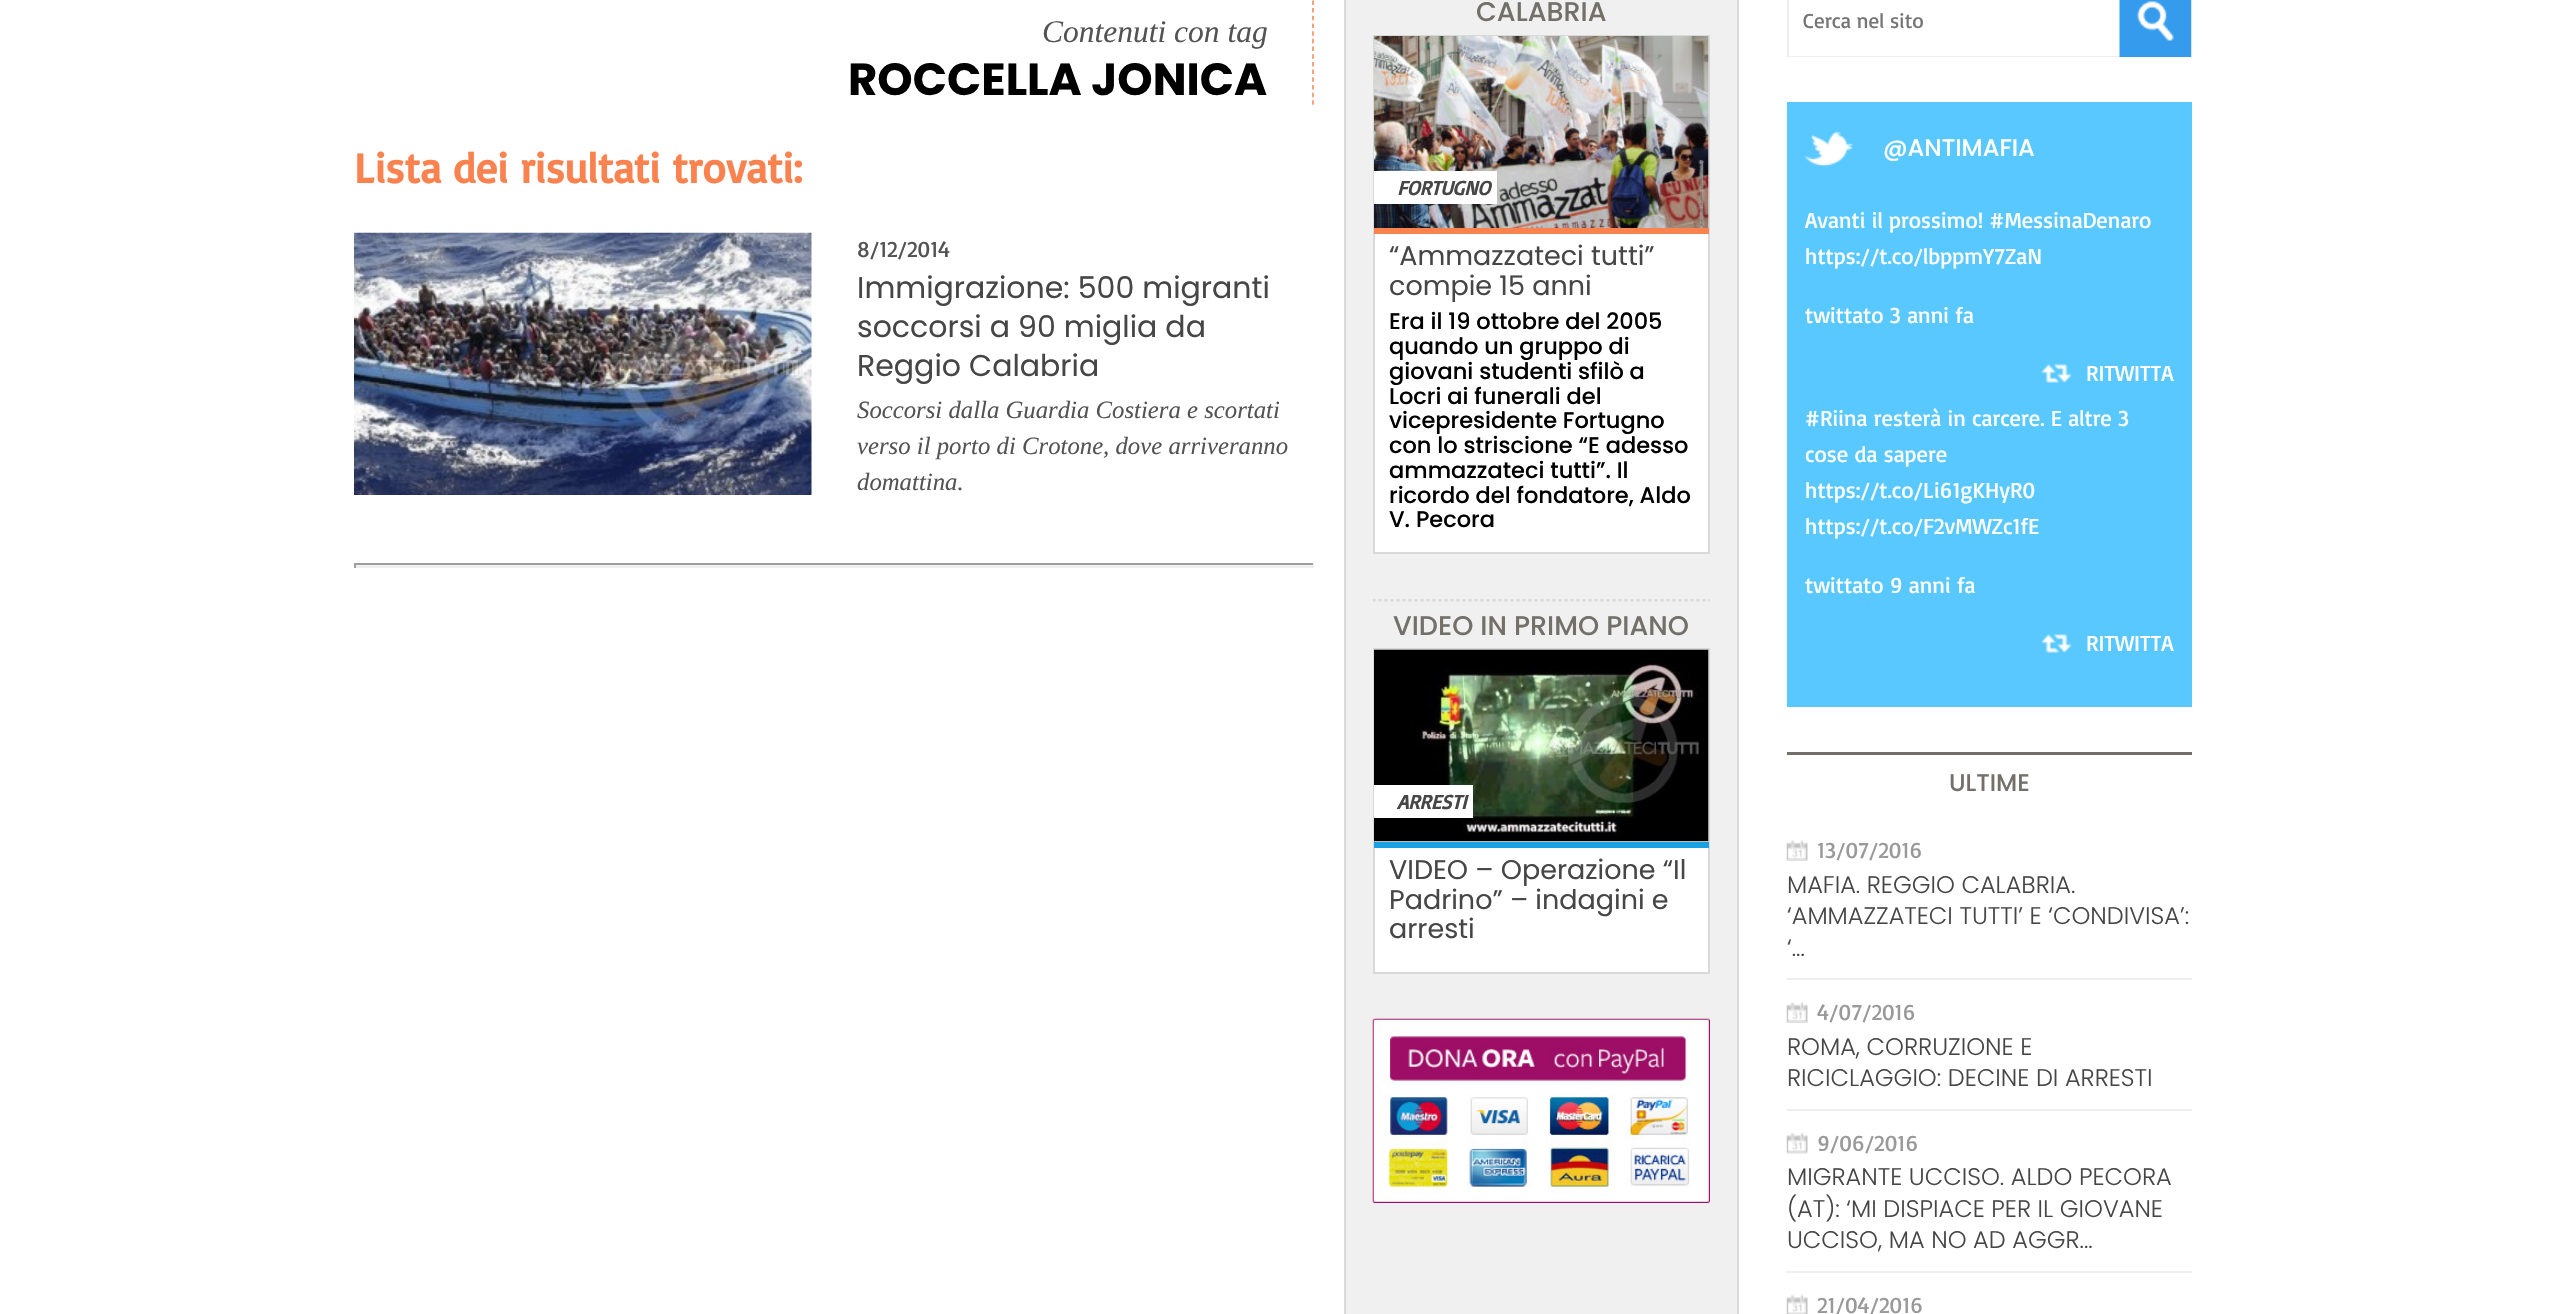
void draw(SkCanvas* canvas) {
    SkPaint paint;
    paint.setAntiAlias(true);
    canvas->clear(0xFFFFFFFF);
    paint.setStyle(SkPaint::kStroke_Style);
    paint.setStrokeWidth(1.5f);
    paint.setColor(0xFFFA824F);
    paint.setPathEffect(SkDashPathEffect::Make({{4.5f, 3.19f}}, 0));
    canvas->drawPath(SkPathBuilder().moveTo(1313, -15).lineTo(1313, 105).detach(), paint);
    paint.setPathEffect(nullptr);
    SkFont font1(fontMgr->matchFamilyStyle("Liberation Serif", SkFontStyle::Italic()), 31.5f);
    font1.setSubpixel(true);
    paint.setStyle(SkPaint::kFill_Style);
    paint.setColor(0xFF535353);
    canvas->drawString("Contenuti con tag", 1042, 42, font1, paint);
    SkFont font2(fontMgr->matchFamilyStyle("Poppins", SkFontStyle::Bold()), 45);
    font2.setSubpixel(true);
    paint.setColor(0xFF000000);
    canvas->drawString("ROCCELLA JONICA", 848, 95, font2, paint);
    SkFont font3(fontMgr->matchFamilyStyle("Basic", SkFontStyle::Bold()), 42.75f);
    font3.setSubpixel(true);
    paint.setColor(0xFFFA824F);
    canvas->drawString("Lista dei risultati trovati:", 354, 183, font3, paint);
    canvas->drawImageRect(SkImages::DeferredFromEncodedData(SkData::MakeFromFileName("img1.png")), SkRect::MakeXYWH(354, 232, 458, 263), SkSamplingOptions());
    SkFont font4(fontMgr->matchFamilyStyle("Basic", SkFontStyle::Normal()), 22.5f);
    font4.setSubpixel(true);
    paint.setColor(0xFF535353);
    canvas->drawString("8/12/2014", 857, 257, font4, paint);
    SkFont font5(fontMgr->matchFamilyStyle("Poppins", SkFontStyle::Normal()), 30);
    font5.setSubpixel(true);
    paint.setColor(0xFF464646);
    canvas->drawString("Immigrazione: 500 migranti", 857, 298, font5, paint);
    canvas->drawString("soccorsi a 90 miglia da", 857, 337, font5, paint);
    canvas->drawString("Reggio Calabria", 857, 376, font5, paint);
    SkFont font6(fontMgr->matchFamilyStyle("Liberation Serif", SkFontStyle::Italic()), 24.75f);
    font6.setSubpixel(true);
    paint.setColor(0xFF535353);
    canvas->drawString("Soccorsi dalla Guardia Costiera e scortati", 857, 418, font6, paint);
    canvas->drawString("verso il porto di Crotone, dove arriveranno", 857, 454, font6, paint);
    canvas->drawString("domattina.", 857, 490, font6, paint);
    paint.setColor(0xFFF2F2F2);
    canvas->drawRect(SkRect::MakeXYWH(354, 565, 960, 1), paint);
    paint.setColor(0xFF9F9F9F);
    canvas->drawRect(SkRect::MakeXYWH(354, 563, 960, 2), paint);
    paint.setColor(0xFFEEEEEE);
    canvas->drawRect(SkRect::MakeXYWH(1313, 563, 1, 5), paint);
    canvas->drawRect(SkRect::MakeXYWH(354, 566, 960, 2), paint);
    paint.setColor(0xFF9F9F9F);
    canvas->drawRect(SkRect::MakeXYWH(354, 563, 2, 5), paint);
    paint.setColor(0xFFF0F0F0);
    canvas->drawRect(SkRect::MakeXYWH(1346, 0, 391, 1314), paint);
    paint.setColor(0xFFD9D9D9);
    canvas->drawRect(SkRect::MakeXYWH(1737, 0, 2, 1314), paint);
    canvas->drawRect(SkRect::MakeXYWH(1344, 0, 2, 1314), paint);
    SkFont font7(fontMgr->matchFamilyStyle("Poppins", SkFontStyle(500, SkFontStyle::kNormal_Width, SkFontStyle::kUpright_Slant)), 27);
    font7.setSubpixel(true);
    paint.setColor(0xFF73706A);
    canvas->drawString("CALABRIA", 1476, 21, font7, paint);
    paint.setColor(0xFFFFFFFF);
    canvas->drawRect(SkRect::MakeXYWH(1375, 234, 333, 318), paint);
    paint.setStyle(SkPaint::kStroke_Style);
    paint.setStrokeWidth(2);
    paint.setColor(0xFFD9D9D9);
    canvas->drawRect(SkRect::MakeXYWH(1374, 36, 335, 517), paint);
    paint.setStyle(SkPaint::kFill_Style);
    paint.setColor(0xFFFA824F);
    canvas->drawRect(SkRect::MakeXYWH(1374, 228, 335, 6), paint);
    canvas->drawImageRect(SkImages::DeferredFromEncodedData(SkData::MakeFromFileName("img2.png")), SkRect::MakeXYWH(1374, 36, 335, 192), SkSamplingOptions());
    paint.setColor(0xFFFFFFFF);
    canvas->drawRect(SkRect::MakeXYWH(1374, 171, 123, 33), paint);
    SkFont font8(fontMgr->matchFamilyStyle("Basic", SkFontStyle::BoldItalic()), 20.25f);
    font8.setSubpixel(true);
    paint.setColor(0xFF464646);
    canvas->drawString("FORTUGNO", 1397, 195, font8, paint);
    SkFont font9(fontMgr->matchFamilyStyle("Poppins", SkFontStyle::Normal()), 27);
    font9.setSubpixel(true);
    canvas->drawString("“Ammazzateci tutti”", 1389, 265, font9, paint);
    canvas->drawString("compie 15 anni", 1389, 295, font9, paint);
    SkFont font10(fontMgr->matchFamilyStyle("Poppins", SkFontStyle(500, SkFontStyle::kNormal_Width, SkFontStyle::kUpright_Slant)), 22.5f);
    font10.setSubpixel(true);
    paint.setColor(0xFF000000);
    canvas->drawString("Era il 19 ottobre del 2005", 1389, 329, font10, paint);
    canvas->drawString("quando un gruppo di", 1389, 354, font10, paint);
    canvas->drawString("giovani studenti sfilò a", 1389, 379, font10, paint);
    canvas->drawString("Locri ai funerali del", 1389, 404, font10, paint);
    canvas->drawString("vicepresidente Fortugno", 1389, 428, font10, paint);
    canvas->drawString("con lo striscione “E adesso", 1389, 453, font10, paint);
    canvas->drawString("ammazzateci tutti”. Il", 1389, 478, font10, paint);
    canvas->drawString("ricordo del fondatore, Aldo", 1389, 503, font10, paint);
    canvas->drawString("V. Pecora", 1389, 527, font10, paint);
    canvas->save();
    canvas->clipRect(SkRect::MakeXYWH(1373, 599, 337, 375));
    paint.setStyle(SkPaint::kStroke_Style);
    paint.setStrokeWidth(3);
    paint.setColor(0xFFD9D9D9);
    paint.setPathEffect(SkDashPathEffect::Make({{3, 3}}, 0));
    canvas->drawPath(SkPathBuilder().moveTo(1372.5f, 600).lineTo(1710, 600).detach(), paint);
    paint.setPathEffect(nullptr);
    canvas->restore();
    paint.setStyle(SkPaint::kFill_Style);
    paint.setColor(0xFF73706A);
    canvas->drawString("VIDEO IN PRIMO PIANO", 1393, 635, font7, paint);
    paint.setColor(0xFFFFFFFF);
    canvas->drawRect(SkRect::MakeXYWH(1375, 841, 333, 131), paint);
    paint.setStyle(SkPaint::kStroke_Style);
    paint.setStrokeWidth(2);
    paint.setColor(0xFFD9D9D9);
    canvas->drawRect(SkRect::MakeXYWH(1374, 649, 335, 324), paint);
    paint.setStyle(SkPaint::kFill_Style);
    paint.setColor(0xFF1BA1E2);
    canvas->drawRect(SkRect::MakeXYWH(1374, 842, 335, 6), paint);
    canvas->drawImageRect(SkImages::DeferredFromEncodedData(SkData::MakeFromFileName("img3.png")), SkRect::MakeXYWH(1374, 649, 335, 193), SkSamplingOptions());
    paint.setColor(0xFFFFFFFF);
    canvas->drawRect(SkRect::MakeXYWH(1374, 785, 99, 33), paint);
    paint.setColor(0xFF464646);
    canvas->drawString("ARRESTI", 1397, 809, font8, paint);
    canvas->drawString("VIDEO – Operazione “Il", 1389, 879, font9, paint);
    canvas->drawString("Padrino” – indagini e", 1389, 909, font9, paint);
    canvas->drawString("arresti", 1389, 938, font9, paint);
    canvas->drawImageRect(SkImages::DeferredFromEncodedData(SkData::MakeFromFileName("img4.png")), SkRect::MakeXYWH(1372, 1018, 338, 185), SkSamplingOptions());
    paint.setColor(0xFFEEEEEE);
    canvas->drawRect(SkRect::MakeXYWH(1787, 56, 333, 1), paint);
    canvas->drawRect(SkRect::MakeXYWH(1787, 0, 2, 57), paint);
    SkFont font11(fontMgr->matchFamilyStyle("Basic", SkFontStyle::Normal()), 21);
    font11.setSubpixel(true);
    paint.setColor(0xFF757575);
    canvas->drawString("Cerca nel sito", 1803, 28, font11, paint);
    canvas->drawImageRect(SkImages::DeferredFromEncodedData(SkData::MakeFromFileName("img5.png")), SkRect::MakeXYWH(2119, 0, 73, 57), SkSamplingOptions());
    paint.setColor(0xFF59C8FF);
    canvas->drawRect(SkRect::MakeXYWH(1787, 102, 405, 605), paint);
    canvas->drawImageRect(SkImages::DeferredFromEncodedData(SkData::MakeFromFileName("img6.png")), SkRect::MakeXYWH(1804, 131, 49, 36), SkSamplingOptions());
    SkFont font12(fontMgr->matchFamilyStyle("Poppins", SkFontStyle(500, SkFontStyle::kNormal_Width, SkFontStyle::kUpright_Slant)), 24);
    font12.setSubpixel(true);
    paint.setColor(0xFFFFFFFF);
    canvas->drawString("@ANTIMAFIA", 1883, 156, font12, paint);
    canvas->drawString("Avanti il prossimo! #MessinaDenaro", 1805, 228, font4, paint);
    canvas->drawString("https://t.co/lbppmY7ZaN", 1805, 264, font4, paint);
    canvas->drawString("twittato 3 anni fa", 1805, 323, font4, paint);
    canvas->drawImageRect(SkImages::DeferredFromEncodedData(SkData::MakeFromFileName("img7.png")), SkRect::MakeXYWH(2041, 364, 31, 19), SkSamplingOptions());
    canvas->drawString("RITWITTA", 2086, 381, font4, paint);
    canvas->drawString("#Riina resterà in carcere. E altre 3", 1805, 426, font4, paint);
    canvas->drawString("cose da sapere", 1805, 462, font4, paint);
    canvas->drawString("https://t.co/Li61gKHyR0", 1805, 498, font4, paint);
    canvas->drawString("https://t.co/F2vMWZc1fE", 1805, 534, font4, paint);
    canvas->drawString("twittato 9 anni fa", 1805, 593, font4, paint);
    canvas->drawImageRect(SkImages::DeferredFromEncodedData(SkData::MakeFromFileName("img7.png")), SkRect::MakeXYWH(2041, 634, 31, 19), SkSamplingOptions());
    canvas->drawString("RITWITTA", 2086, 651, font4, paint);
    paint.setColor(0xFF73706A);
    canvas->drawRect(SkRect::MakeXYWH(1787, 752, 405, 3), paint);
    canvas->drawString("ULTIME", 1949, 791, font12, paint);
    paint.setColor(0xFFEEEEEE);
    canvas->drawRect(SkRect::MakeXYWH(1787, 978, 405, 2), paint);
    canvas->drawImageRect(SkImages::DeferredFromEncodedData(SkData::MakeFromFileName("img8.png")), SkRect::MakeXYWH(1786, 840, 22, 21), SkSamplingOptions());
    paint.setColor(0xFF999999);
    canvas->drawString("13/07/2016", 1817, 858, font4, paint);
    SkFont font13(fontMgr->matchFamilyStyle("Poppins", SkFontStyle(300, SkFontStyle::kNormal_Width, SkFontStyle::kUpright_Slant)), 24);
    font13.setSubpixel(true);
    paint.setColor(0xFF464646);
    canvas->drawString("MAFIA. REGGIO CALABRIA.", 1787, 893, font13, paint);
    canvas->drawString("‘AMMAZZATECI TUTTI’ E ‘CONDIVISA’:", 1787, 924, font13, paint);
    canvas->drawString("‘...", 1787, 956, font13, paint);
    paint.setColor(0xFFEEEEEE);
    canvas->drawRect(SkRect::MakeXYWH(1787, 1109, 405, 2), paint);
    canvas->drawImageRect(SkImages::DeferredFromEncodedData(SkData::MakeFromFileName("img8.png")), SkRect::MakeXYWH(1786, 1002, 22, 21), SkSamplingOptions());
    paint.setColor(0xFF999999);
    canvas->drawString("4/07/2016", 1817, 1020, font4, paint);
    paint.setColor(0xFF464646);
    canvas->drawString("ROMA, CORRUZIONE E", 1787, 1055, font13, paint);
    canvas->drawString("RICICLAGGIO: DECINE DI ARRESTI", 1787, 1086, font13, paint);
    paint.setColor(0xFFEEEEEE);
    canvas->drawRect(SkRect::MakeXYWH(1787, 1271, 405, 2), paint);
    canvas->drawImageRect(SkImages::DeferredFromEncodedData(SkData::MakeFromFileName("img9.png")), SkRect::MakeXYWH(1786, 1132, 22, 22), SkSamplingOptions());
    paint.setColor(0xFF999999);
    canvas->drawString("9/06/2016", 1817, 1151, font4, paint);
    paint.setColor(0xFF464646);
    canvas->drawString("MIGRANTE UCCISO. ALDO PECORA", 1787, 1185, font13, paint);
    canvas->drawString("(AT): ‘MI DISPIACE PER IL GIOVANE", 1787, 1217, font13, paint);
    canvas->drawString("UCCISO, MA NO AD AGGR...", 1787, 1248, font13, paint);
    canvas->drawImageRect(SkImages::DeferredFromEncodedData(SkData::MakeFromFileName("img10.png")), SkRect::MakeXYWH(1786, 1294, 22, 20), SkSamplingOptions());
    paint.setColor(0xFF999999);
    canvas->drawString("21/04/2016", 1817, 1313, font4, paint);
}
